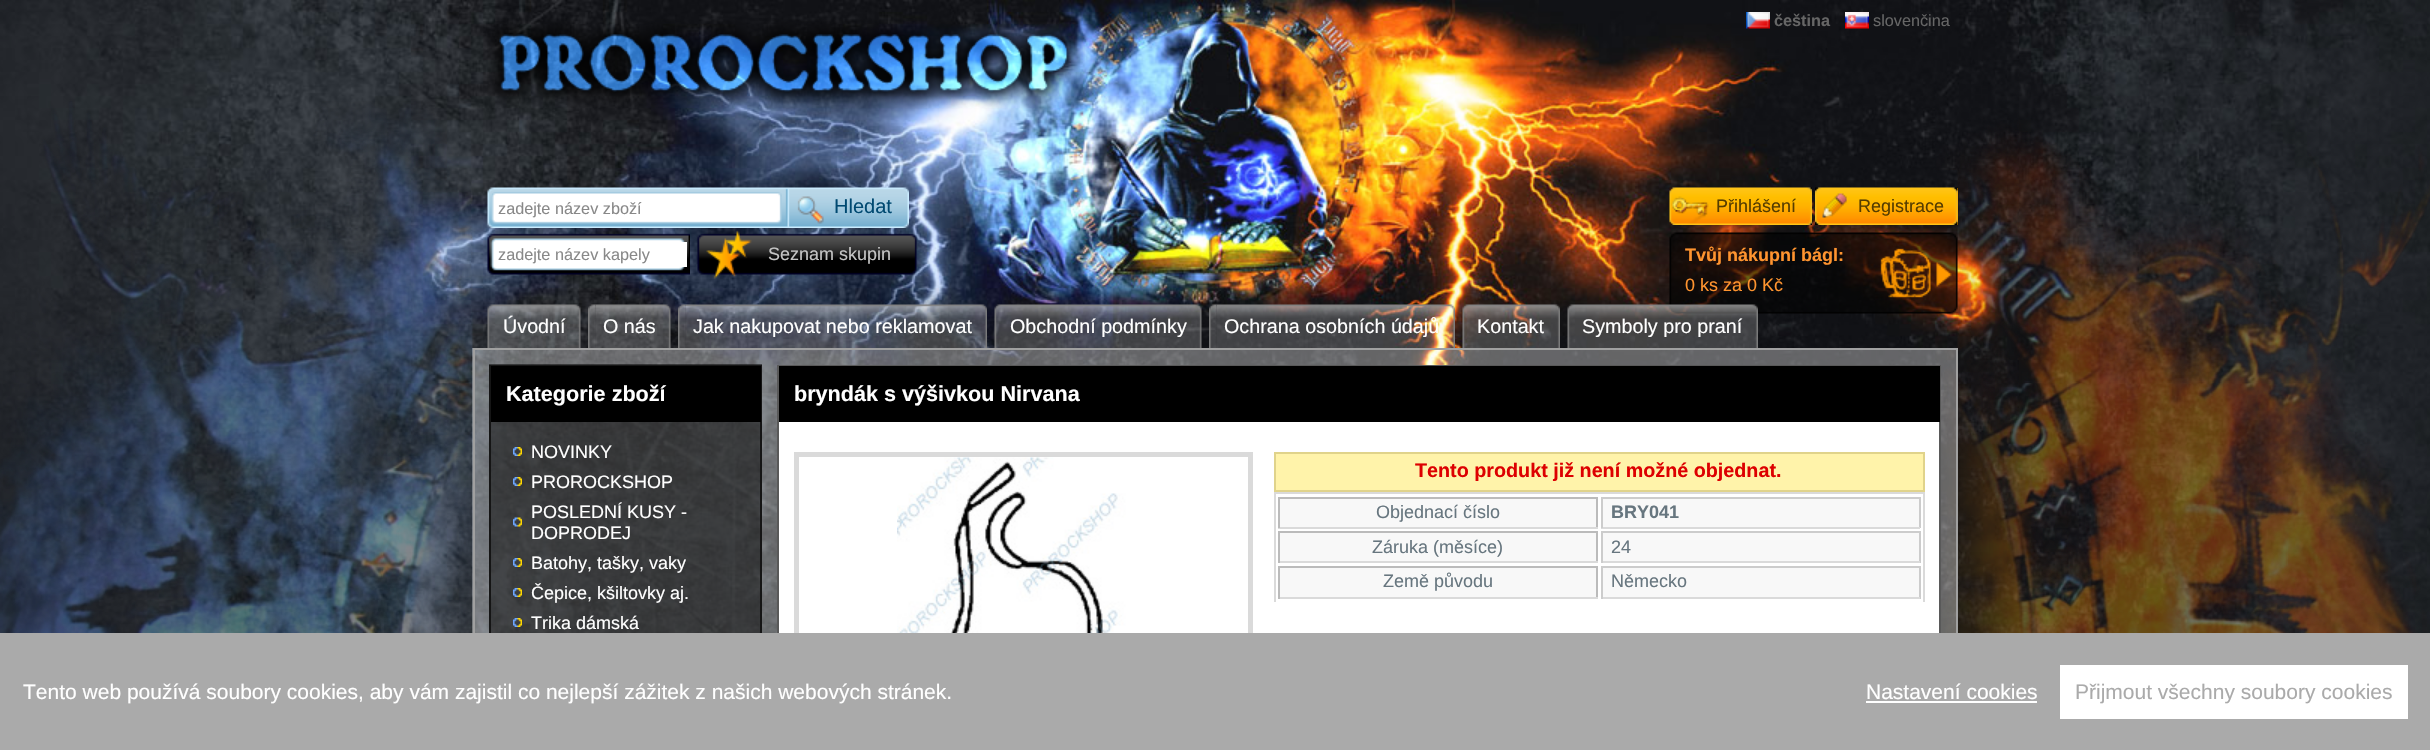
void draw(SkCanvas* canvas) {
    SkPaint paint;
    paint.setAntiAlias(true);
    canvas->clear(0xFFFFFFFF);
    canvas->drawImageRect(SkImages::DeferredFromEncodedData(SkData::MakeFromFileName("img1.png")), SkRect::MakeXYWH(0, 0, 2430, 633), SkSamplingOptions());
    canvas->drawImageRect(SkImages::DeferredFromEncodedData(SkData::MakeFromFileName("img2.png")), SkRect::MakeXYWH(411, 0, 1608, 435), SkSamplingOptions());
    canvas->drawImageRect(SkImages::DeferredFromEncodedData(SkData::MakeFromFileName("img3.png")), SkRect::MakeXYWH(0, 101, 2430, 532), SkSamplingOptions());
    canvas->drawImageRect(SkImages::DeferredFromEncodedData(SkData::MakeFromFileName("img4.png")), SkRect::MakeXYWH(472, 170, 1486, 178), SkSamplingOptions());
    canvas->drawImageRect(SkImages::DeferredFromEncodedData(SkData::MakeFromFileName("img5.png")), SkRect::MakeXYWH(1746, 12, 24, 17), SkSamplingOptions());
    SkFont font1(fontMgr->matchFamilyStyle("Liberation Sans", SkFontStyle::Bold()), 16.25f);
    font1.setSubpixel(true);
    paint.setColor(0xFF666666);
    canvas->drawString("čeština", 1774, 26, font1, paint);
    canvas->drawImageRect(SkImages::DeferredFromEncodedData(SkData::MakeFromFileName("img6.png")), SkRect::MakeXYWH(1845, 12, 24, 17), SkSamplingOptions());
    SkFont font2(fontMgr->matchFamilyStyle("Liberation Sans", SkFontStyle::Normal()), 16.25f);
    font2.setSubpixel(true);
    canvas->drawString("slovenčina", 1873, 26, font2, paint);
    canvas->drawImageRect(SkImages::DeferredFromEncodedData(SkData::MakeFromFileName("img7.png")), SkRect::MakeXYWH(1669, 187, 143, 38), SkSamplingOptions());
    SkFont font3(fontMgr->matchFamilyStyle("Liberation Sans", SkFontStyle::Normal()), 18);
    font3.setSubpixel(true);
    paint.setColor(0xFF563D00);
    canvas->drawString("Přihlášení", 1716, 212, font3, paint);
    paint.setColor(0xFFFFA900);
    canvas->drawRect(SkRect::MakeXYWH(1957, 188, 1, 37), paint);
    canvas->drawImageRect(SkImages::DeferredFromEncodedData(SkData::MakeFromFileName("img8.png")), SkRect::MakeXYWH(1815, 187, 143, 38), SkSamplingOptions());
    paint.setColor(0xFF563D00);
    canvas->drawString("Registrace", 1858, 212, font3, paint);
    canvas->drawImageRect(SkImages::DeferredFromEncodedData(SkData::MakeFromFileName("img9.png")), SkRect::MakeXYWH(495, 304, 86, 44), SkSamplingOptions());
    canvas->drawImageRect(SkImages::DeferredFromEncodedData(SkData::MakeFromFileName("img10.png")), SkRect::MakeXYWH(487, 304, 8, 44), SkSamplingOptions());
    SkFont font4(fontMgr->matchFamilyStyle("Liberation Sans", SkFontStyle::Normal()), 19.75f);
    font4.setSubpixel(true);
    paint.setColor(0xFFFFFFFF);
    canvas->drawString("Úvodní", 503, 333, font4, paint);
    canvas->drawImageRect(SkImages::DeferredFromEncodedData(SkData::MakeFromFileName("img11.png")), SkRect::MakeXYWH(595, 304, 76, 44), SkSamplingOptions());
    canvas->drawImageRect(SkImages::DeferredFromEncodedData(SkData::MakeFromFileName("img12.png")), SkRect::MakeXYWH(588, 304, 8, 44), SkSamplingOptions());
    canvas->drawString("O nás", 603, 333, font4, paint);
    canvas->drawImageRect(SkImages::DeferredFromEncodedData(SkData::MakeFromFileName("img13.png")), SkRect::MakeXYWH(685, 304, 302, 44), SkSamplingOptions());
    canvas->drawImageRect(SkImages::DeferredFromEncodedData(SkData::MakeFromFileName("img14.png")), SkRect::MakeXYWH(678, 304, 8, 44), SkSamplingOptions());
    canvas->drawString("Jak nakupovat nebo reklamovat", 693, 333, font4, paint);
    canvas->drawImageRect(SkImages::DeferredFromEncodedData(SkData::MakeFromFileName("img15.png")), SkRect::MakeXYWH(1002, 304, 200, 44), SkSamplingOptions());
    canvas->drawImageRect(SkImages::DeferredFromEncodedData(SkData::MakeFromFileName("img16.png")), SkRect::MakeXYWH(994, 304, 8, 44), SkSamplingOptions());
    canvas->drawString("Obchodní podmínky", 1010, 333, font4, paint);
    canvas->drawImageRect(SkImages::DeferredFromEncodedData(SkData::MakeFromFileName("img17.png")), SkRect::MakeXYWH(1216, 304, 239, 44), SkSamplingOptions());
    canvas->drawImageRect(SkImages::DeferredFromEncodedData(SkData::MakeFromFileName("img18.png")), SkRect::MakeXYWH(1209, 304, 8, 44), SkSamplingOptions());
    canvas->drawString("Ochrana osobních údajů", 1224, 333, font4, paint);
    canvas->drawImageRect(SkImages::DeferredFromEncodedData(SkData::MakeFromFileName("img19.png")), SkRect::MakeXYWH(1470, 304, 90, 44), SkSamplingOptions());
    canvas->drawImageRect(SkImages::DeferredFromEncodedData(SkData::MakeFromFileName("img20.png")), SkRect::MakeXYWH(1462, 304, 8, 44), SkSamplingOptions());
    canvas->drawString("Kontakt", 1477, 333, font4, paint);
    canvas->drawImageRect(SkImages::DeferredFromEncodedData(SkData::MakeFromFileName("img27.png")), SkRect::MakeXYWH(1669, 232, 289, 82), SkSamplingOptions());
    canvas->drawImageRect(SkImages::DeferredFromEncodedData(SkData::MakeFromFileName("img21.png")), SkRect::MakeXYWH(1575, 304, 183, 44), SkSamplingOptions());
    canvas->drawImageRect(SkImages::DeferredFromEncodedData(SkData::MakeFromFileName("img22.png")), SkRect::MakeXYWH(1567, 304, 8, 44), SkSamplingOptions());
    canvas->drawString("Symboly pro praní", 1582, 333, font4, paint);
    canvas->drawImageRect(SkImages::DeferredFromEncodedData(SkData::MakeFromFileName("img23.png")), SkRect::MakeXYWH(487, 19, 598, 90), SkSamplingOptions());
    canvas->drawImageRect(SkImages::DeferredFromEncodedData(SkData::MakeFromFileName("img24.png")), SkRect::MakeXYWH(487, 187, 422, 41), SkSamplingOptions());
    canvas->drawRect(SkRect::MakeXYWH(495, 220, 1, 1), paint);
    paint.setColor(0xFF888888);
    canvas->drawString("zadejte název zboží", 498, 214, font2, paint);
    SkFont font5(fontMgr->matchFamilyStyle("Liberation Sans", SkFontStyle::Normal()), 20);
    font5.setSubpixel(true);
    paint.setColor(0xFF004971);
    canvas->drawString("Hledat", 834, 213, font5, paint);
    canvas->drawImageRect(SkImages::DeferredFromEncodedData(SkData::MakeFromFileName("img25.png")), SkRect::MakeXYWH(487, 233, 203, 42), SkSamplingOptions());
    paint.setColor(0xFFFFFFFF);
    canvas->drawRect(SkRect::MakeXYWH(680, 242, 7, 25), paint);
    paint.setColor(0xFF888888);
    canvas->drawString("zadejte název kapely", 498, 260, font2, paint);
    canvas->drawImageRect(SkImages::DeferredFromEncodedData(SkData::MakeFromFileName("img26.png")), SkRect::MakeXYWH(697, 230, 220, 49), SkSamplingOptions());
    paint.setColor(0xFFC4C4C4);
    canvas->drawString("Seznam skupin", 768, 260, font3, paint);
    SkFont font6(fontMgr->matchFamilyStyle("Liberation Sans", SkFontStyle::Bold()), 18);
    font6.setSubpixel(true);
    paint.setColor(0xFFFF942F);
    canvas->drawString("Tvůj nákupní bágl:", 1685, 261, font6, paint);
    canvas->drawString("0 ks za 0 Kč", 1685, 291, font3, paint);
    paint.setColor(0x59FFFFFF);
    canvas->drawRect(SkRect::MakeXYWH(472, 348, 1484, 285), paint);
    paint.setStyle(SkPaint::kStroke_Style);
    paint.setStrokeWidth(2);
    paint.setColor(0xFFA0A0A0);
    canvas->drawRect(SkRect::MakeXYWH(474, 349, 1483, 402), paint);
    paint.setStyle(SkPaint::kFill_Style);
    paint.setColor(0x80000000);
    canvas->drawRect(SkRect::MakeXYWH(489, 364, 273, 269), paint);
    paint.setStyle(SkPaint::kStroke_Style);
    paint.setColor(0xFF151515);
    canvas->drawRect(SkRect::MakeXYWH(490, 366, 271, 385), paint);
    paint.setStyle(SkPaint::kFill_Style);
    paint.setColor(0xFF000000);
    canvas->drawRect(SkRect::MakeXYWH(491, 366, 270, 56), paint);
    SkFont font7(fontMgr->matchFamilyStyle("Liberation Sans", SkFontStyle::Bold()), 21.6f);
    font7.setSubpixel(true);
    paint.setColor(0xFFFFFFFF);
    canvas->drawString("Kategorie zboží", 506, 401, font7, paint);
    canvas->drawImageRect(SkImages::DeferredFromEncodedData(SkData::MakeFromFileName("img28.png")), SkRect::MakeXYWH(513, 447, 9, 9), SkSamplingOptions());
    canvas->drawString("NOVINKY", 531, 458, font3, paint);
    canvas->drawImageRect(SkImages::DeferredFromEncodedData(SkData::MakeFromFileName("img29.png")), SkRect::MakeXYWH(513, 477, 9, 9), SkSamplingOptions());
    canvas->drawString("PROROCKSHOP", 531, 488, font3, paint);
    canvas->drawImageRect(SkImages::DeferredFromEncodedData(SkData::MakeFromFileName("img30.png")), SkRect::MakeXYWH(513, 517, 9, 10), SkSamplingOptions());
    canvas->drawString("POSLEDNÍ KUSY -", 531, 518, font3, paint);
    canvas->drawString("DOPRODEJ", 531, 539, font3, paint);
    canvas->drawImageRect(SkImages::DeferredFromEncodedData(SkData::MakeFromFileName("img31.png")), SkRect::MakeXYWH(513, 558, 9, 9), SkSamplingOptions());
    canvas->drawString("Batohy, tašky, vaky", 531, 569, font3, paint);
    canvas->drawImageRect(SkImages::DeferredFromEncodedData(SkData::MakeFromFileName("img32.png")), SkRect::MakeXYWH(513, 588, 9, 9), SkSamplingOptions());
    canvas->drawString("Čepice, kšiltovky aj.", 531, 599, font3, paint);
    canvas->drawImageRect(SkImages::DeferredFromEncodedData(SkData::MakeFromFileName("img33.png")), SkRect::MakeXYWH(513, 618, 9, 9), SkSamplingOptions());
    canvas->drawString("Trika dámská", 531, 629, font3, paint);
    canvas->drawRect(SkRect::MakeXYWH(779, 422, 1160, 211), paint);
    paint.setStyle(SkPaint::kStroke_Style);
    paint.setColor(0xFF595959);
    canvas->drawRect(SkRect::MakeXYWH(778, 366, 1162, 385), paint);
    paint.setStyle(SkPaint::kFill_Style);
    paint.setColor(0xFF000000);
    canvas->drawRect(SkRect::MakeXYWH(779, 366, 1161, 56), paint);
    paint.setColor(0xFFFFFFFF);
    canvas->drawString("bryndák s výšivkou Nirvana", 794, 401, font7, paint);
    paint.setStyle(SkPaint::kStroke_Style);
    paint.setStrokeWidth(5);
    paint.setColor(0xFFDADADA);
    canvas->drawRect(SkRect::MakeXYWH(796.5f, 454.5f, 454, 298), paint);
    canvas->drawImageRect(SkImages::DeferredFromEncodedData(SkData::MakeFromFileName("img34.png")), SkRect::MakeXYWH(897, 457, 247, 176), SkSamplingOptions());
    paint.setStyle(SkPaint::kFill_Style);
    paint.setColor(0xFFFFF3AA);
    canvas->drawRect(SkRect::MakeXYWH(1275, 453, 649, 38), paint);
    paint.setStyle(SkPaint::kStroke_Style);
    paint.setStrokeWidth(2);
    paint.setColor(0xFFE0D38B);
    canvas->drawRect(SkRect::MakeXYWH(1275, 453, 649, 38), paint);
    SkFont font8(fontMgr->matchFamilyStyle("Liberation Sans", SkFontStyle::Bold()), 19.75f);
    font8.setSubpixel(true);
    paint.setStyle(SkPaint::kFill_Style);
    paint.setColor(0xFFDD0000);
    canvas->drawString("Tento produkt již není možné objednat.", 1415, 477, font8, paint);
    paint.setColor(0xFFDADADA);
    canvas->drawRect(SkRect::MakeXYWH(1274, 492, 651, 2), paint);
    canvas->drawRect(SkRect::MakeXYWH(1923, 492, 2, 110), paint);
    canvas->drawRect(SkRect::MakeXYWH(1274, 492, 2, 110), paint);
    paint.setColor(0xFFF8F8F8);
    canvas->drawRect(SkRect::MakeXYWH(1280, 499, 316, 28), paint);
    paint.setColor(0xFFBBBBBB);
    canvas->drawRect(SkRect::MakeXYWH(1278, 497, 320, 2), paint);
    canvas->drawRect(SkRect::MakeXYWH(1596, 497, 2, 31), paint);
    paint.setColor(0xFFDADADA);
    canvas->drawRect(SkRect::MakeXYWH(1278, 527, 320, 2), paint);
    paint.setColor(0xFFBBBBBB);
    canvas->drawRect(SkRect::MakeXYWH(1278, 497, 2, 31), paint);
    paint.setColor(0xFF67767F);
    canvas->drawString("Objednací číslo", 1376, 518, font3, paint);
    paint.setColor(0xFFF8F8F8);
    canvas->drawRect(SkRect::MakeXYWH(1603, 499, 316, 28), paint);
    paint.setColor(0xFFCCCCCC);
    canvas->drawRect(SkRect::MakeXYWH(1601, 497, 319, 2), paint);
    canvas->drawRect(SkRect::MakeXYWH(1919, 497, 2, 31), paint);
    paint.setColor(0xFFDADADA);
    canvas->drawRect(SkRect::MakeXYWH(1601, 527, 319, 2), paint);
    paint.setColor(0xFFCCCCCC);
    canvas->drawRect(SkRect::MakeXYWH(1601, 497, 2, 31), paint);
    paint.setColor(0xFF67767F);
    canvas->drawString("BRY041", 1611, 518, font6, paint);
    paint.setColor(0xFFF8F8F8);
    canvas->drawRect(SkRect::MakeXYWH(1280, 533, 316, 28), paint);
    paint.setColor(0xFFBBBBBB);
    canvas->drawRect(SkRect::MakeXYWH(1278, 531, 320, 2), paint);
    canvas->drawRect(SkRect::MakeXYWH(1596, 531, 2, 32), paint);
    paint.setColor(0xFFDADADA);
    canvas->drawRect(SkRect::MakeXYWH(1278, 561, 320, 2), paint);
    paint.setColor(0xFFBBBBBB);
    canvas->drawRect(SkRect::MakeXYWH(1278, 531, 2, 32), paint);
    paint.setColor(0xFF67767F);
    canvas->drawString("Záruka (měsíce)", 1372, 553, font3, paint);
    paint.setColor(0xFFF8F8F8);
    canvas->drawRect(SkRect::MakeXYWH(1603, 533, 316, 28), paint);
    paint.setColor(0xFFCCCCCC);
    canvas->drawRect(SkRect::MakeXYWH(1601, 531, 319, 2), paint);
    canvas->drawRect(SkRect::MakeXYWH(1919, 531, 2, 32), paint);
    paint.setColor(0xFFDADADA);
    canvas->drawRect(SkRect::MakeXYWH(1601, 561, 319, 2), paint);
    paint.setColor(0xFFCCCCCC);
    canvas->drawRect(SkRect::MakeXYWH(1601, 531, 2, 32), paint);
    paint.setColor(0xFF67767F);
    canvas->drawString("24", 1611, 553, font3, paint);
    paint.setColor(0xFFF8F8F8);
    canvas->drawRect(SkRect::MakeXYWH(1280, 568, 316, 29), paint);
    paint.setColor(0xFFBBBBBB);
    canvas->drawRect(SkRect::MakeXYWH(1278, 566, 320, 2), paint);
    canvas->drawRect(SkRect::MakeXYWH(1596, 566, 2, 33), paint);
    paint.setColor(0xFFDADADA);
    canvas->drawRect(SkRect::MakeXYWH(1278, 597, 320, 2), paint);
    paint.setColor(0xFFBBBBBB);
    canvas->drawRect(SkRect::MakeXYWH(1278, 566, 2, 33), paint);
    paint.setColor(0xFF67767F);
    canvas->drawString("Země původu", 1383, 587, font3, paint);
    paint.setColor(0xFFF8F8F8);
    canvas->drawRect(SkRect::MakeXYWH(1603, 568, 316, 29), paint);
    paint.setColor(0xFFCCCCCC);
    canvas->drawRect(SkRect::MakeXYWH(1601, 566, 319, 2), paint);
    canvas->drawRect(SkRect::MakeXYWH(1919, 566, 2, 33), paint);
    paint.setColor(0xFFDADADA);
    canvas->drawRect(SkRect::MakeXYWH(1601, 597, 319, 2), paint);
    paint.setColor(0xFFCCCCCC);
    canvas->drawRect(SkRect::MakeXYWH(1601, 566, 2, 33), paint);
    paint.setColor(0xFF67767F);
    canvas->drawString("Německo", 1611, 587, font3, paint);
    paint.setColor(0xFFAAAAAA);
    canvas->drawRect(SkRect::MakeXYWH(0, 633, 2430, 117), paint);
    SkFont font9(fontMgr->matchFamilyStyle("Liberation Sans", SkFontStyle::Normal()), 21);
    font9.setSubpixel(true);
    paint.setColor(0xFFFFFFFF);
    canvas->drawString("Tento web používá soubory cookies, aby vám zajistil co nejlepší zážitek z našich webových stránek.", 23, 699, font9, paint);
    canvas->drawString("Nastavení cookies", 1866, 699, font9, paint);
    canvas->drawRect(SkRect::MakeXYWH(1866, 701, 171, 2), paint);
    canvas->drawRect(SkRect::MakeXYWH(2060, 665, 348, 54), paint);
    paint.setColor(0xFFAAAAAA);
    canvas->drawString("Přijmout všechny soubory cookies", 2075, 699, font9, paint);
}
